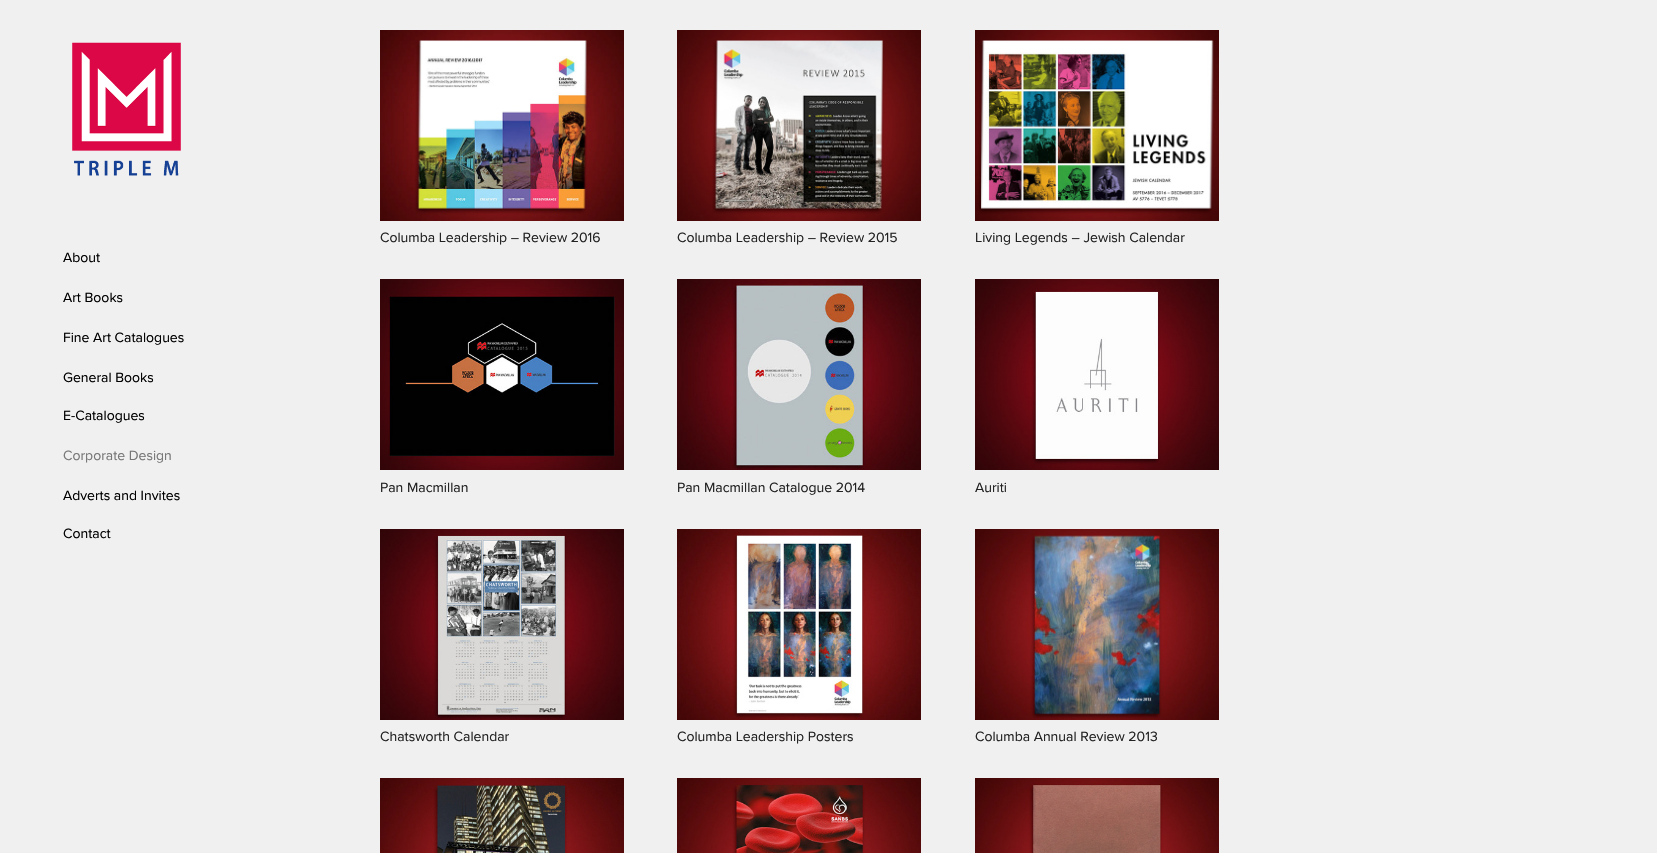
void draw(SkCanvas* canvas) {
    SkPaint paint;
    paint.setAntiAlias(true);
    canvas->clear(0xFFF0F0F0);
    canvas->drawImageRect(SkImages::DeferredFromEncodedData(SkData::MakeFromFileName("img1.png")), SkRect::MakeXYWH(72, 42, 109, 134), SkSamplingOptions());
    SkFont font1(fontMgr->matchFamilyStyle("Proxima Nova", SkFontStyle::Normal()), 14);
    font1.setSubpixel(true);
    paint.setColor(0xFF000000);
    canvas->drawString("About", 63, 262, font1, paint);
    canvas->drawString("Art Books", 63, 302, font1, paint);
    canvas->drawString("Fine Art Catalogues", 63, 342, font1, paint);
    canvas->drawString("General Books", 63, 382, font1, paint);
    canvas->drawString("E-Catalogues", 63, 420, font1, paint);
    paint.setColor(0xFF777777);
    canvas->drawString("Corporate Design", 63, 460, font1, paint);
    paint.setColor(0xFF000000);
    canvas->drawString("Adverts and Invites", 63, 500, font1, paint);
    canvas->drawString("Contact", 63, 538, font1, paint);
    canvas->drawImageRect(SkImages::DeferredFromEncodedData(SkData::MakeFromFileName("img2.png")), SkRect::MakeXYWH(380, 30, 244, 191), SkSamplingOptions());
    paint.setColor(0xFF222222);
    canvas->drawString("Columba Leadership – Review 2016", 380, 242, font1, paint);
    canvas->drawImageRect(SkImages::DeferredFromEncodedData(SkData::MakeFromFileName("img3.png")), SkRect::MakeXYWH(677, 30, 244, 191), SkSamplingOptions());
    canvas->drawString("Columba Leadership – Review 2015", 677, 242, font1, paint);
    canvas->drawImageRect(SkImages::DeferredFromEncodedData(SkData::MakeFromFileName("img4.png")), SkRect::MakeXYWH(975, 30, 244, 191), SkSamplingOptions());
    canvas->drawString("Living Legends – Jewish Calendar", 975, 242, font1, paint);
    canvas->drawImageRect(SkImages::DeferredFromEncodedData(SkData::MakeFromFileName("img5.png")), SkRect::MakeXYWH(380, 279, 244, 191), SkSamplingOptions());
    canvas->drawString("Pan Macmillan", 380, 492, font1, paint);
    canvas->drawImageRect(SkImages::DeferredFromEncodedData(SkData::MakeFromFileName("img6.png")), SkRect::MakeXYWH(677, 279, 244, 191), SkSamplingOptions());
    canvas->drawString("Pan Macmillan Catalogue 2014", 677, 492, font1, paint);
    canvas->drawImageRect(SkImages::DeferredFromEncodedData(SkData::MakeFromFileName("img7.png")), SkRect::MakeXYWH(975, 279, 244, 191), SkSamplingOptions());
    canvas->drawString("Auriti", 975, 492, font1, paint);
    canvas->drawImageRect(SkImages::DeferredFromEncodedData(SkData::MakeFromFileName("img8.png")), SkRect::MakeXYWH(380, 529, 244, 191), SkSamplingOptions());
    canvas->drawString("Chatsworth Calendar", 380, 741, font1, paint);
    canvas->drawImageRect(SkImages::DeferredFromEncodedData(SkData::MakeFromFileName("img9.png")), SkRect::MakeXYWH(677, 529, 244, 191), SkSamplingOptions());
    canvas->drawString("Columba Leadership Posters", 677, 741, font1, paint);
    canvas->drawImageRect(SkImages::DeferredFromEncodedData(SkData::MakeFromFileName("img10.png")), SkRect::MakeXYWH(975, 529, 244, 191), SkSamplingOptions());
    canvas->drawString("Columba Annual Review 2013", 975, 741, font1, paint);
    canvas->drawImageRect(SkImages::DeferredFromEncodedData(SkData::MakeFromFileName("img11.png")), SkRect::MakeXYWH(380, 778, 244, 75), SkSamplingOptions());
    canvas->drawImageRect(SkImages::DeferredFromEncodedData(SkData::MakeFromFileName("img12.png")), SkRect::MakeXYWH(677, 778, 244, 75), SkSamplingOptions());
    canvas->drawImageRect(SkImages::DeferredFromEncodedData(SkData::MakeFromFileName("img13.png")), SkRect::MakeXYWH(975, 778, 244, 75), SkSamplingOptions());
}
